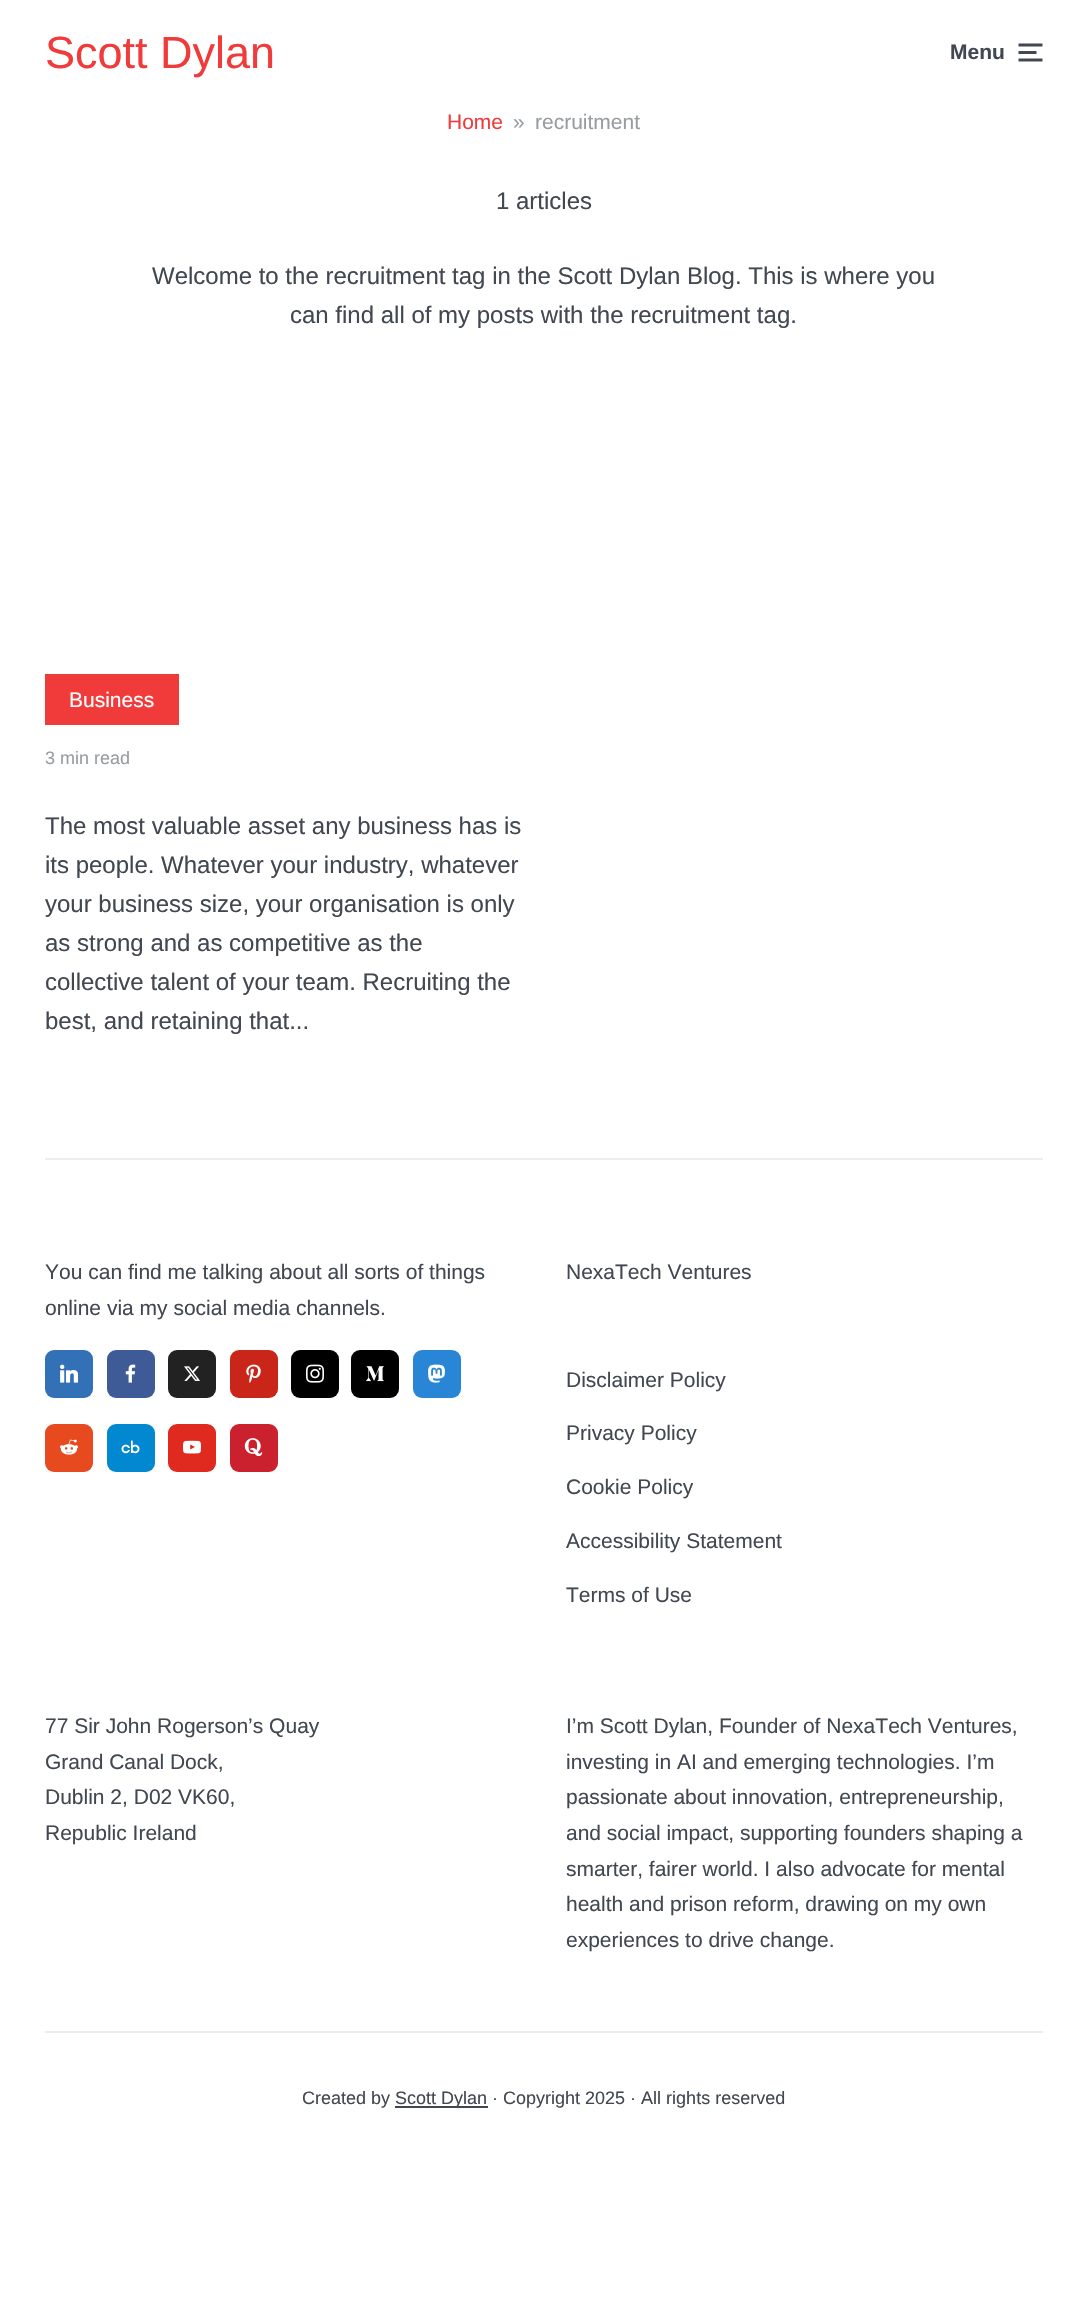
void draw(SkCanvas* canvas) {
    SkPaint paint;
    paint.setAntiAlias(true);
    canvas->clear(0xFFFFFFFF);
    SkFont font1(fontMgr->matchFamilyStyle("Liberation Sans", SkFontStyle::Normal()), 45);
    font1.setSubpixel(true);
    paint.setColor(0xFFF13B3B);
    canvas->drawString("Scott Dylan", 45, 68, font1, paint);
    SkFont font2(fontMgr->matchFamilyStyle("Liberation Sans", SkFontStyle::Bold()), 21);
    font2.setSubpixel(true);
    paint.setColor(0xFF424851);
    canvas->drawString("Menu", 950, 59, font2, paint);
    canvas->drawImageRect(SkImages::DeferredFromEncodedData(SkData::MakeFromFileName("img1.png")), SkRect::MakeXYWH(1018, 43, 25, 19), SkSamplingOptions());
    SkFont font3(fontMgr->matchFamilyStyle("Liberation Sans", SkFontStyle::Normal()), 21);
    font3.setSubpixel(true);
    paint.setColor(0xFFF13B3B);
    canvas->drawString("Home", 447, 129, font3, paint);
    paint.setColor(0xFF989DA2);
    canvas->drawString("»", 513, 129, font3, paint);
    canvas->drawString("recruitment", 535, 129, font3, paint);
    SkFont font4(fontMgr->matchFamilyStyle("Liberation Sans", SkFontStyle::Normal()), 24);
    font4.setSubpixel(true);
    paint.setColor(0xFF424851);
    canvas->drawString("1 articles", 496, 209, font4, paint);
    canvas->drawString("Welcome to the recruitment tag in the Scott Dylan Blog. This is where you", 152, 284, font4, paint);
    canvas->drawString("can find all of my posts with the recruitment tag.", 290, 323, font4, paint);
    paint.setColor(0xFFF13B3B);
    canvas->drawRect(SkRect::MakeXYWH(45, 674, 134, 51), paint);
    paint.setColor(0xFFFFFFFF);
    canvas->drawString("Business", 69, 707, font3, paint);
    SkFont font5(fontMgr->matchFamilyStyle("Liberation Sans", SkFontStyle::Normal()), 18);
    font5.setSubpixel(true);
    paint.setColor(0xFF989DA2);
    canvas->drawString("3 min read", 45, 764, font5, paint);
    paint.setColor(0xFF424851);
    canvas->drawString("The most valuable asset any business has is", 45, 834, font4, paint);
    canvas->drawString("its people. Whatever your industry, whatever", 45, 873, font4, paint);
    canvas->drawString("your business size, your organisation is only", 45, 912, font4, paint);
    canvas->drawString("as strong and as competitive as the", 45, 951, font4, paint);
    canvas->drawString("collective talent of your team. Recruiting the", 45, 990, font4, paint);
    canvas->drawString("best, and retaining that...", 45, 1029, font4, paint);
    paint.setColor(0xFFECEDEE);
    canvas->drawRect(SkRect::MakeXYWH(45, 1158, 998, 2), paint);
    paint.setColor(0xFF424851);
    canvas->drawString("You can find me talking about all sorts of things", 45, 1279, font3, paint);
    canvas->drawString("online via my social media channels.", 45, 1315, font3, paint);
    paint.setColor(0xFF3371B7);
    canvas->drawRoundRect(SkRect::MakeXYWH(45, 1350, 48, 48), 9, 9, paint);
    canvas->drawImageRect(SkImages::DeferredFromEncodedData(SkData::MakeFromFileName("img2.png")), SkRect::MakeXYWH(60, 1364, 18, 19), SkSamplingOptions());
    paint.setColor(0xFF3E5B98);
    canvas->drawRoundRect(SkRect::MakeXYWH(107, 1350, 48, 48), 9, 9, paint);
    canvas->drawImageRect(SkImages::DeferredFromEncodedData(SkData::MakeFromFileName("img3.png")), SkRect::MakeXYWH(125, 1364, 11, 19), SkSamplingOptions());
    paint.setColor(0xFF222222);
    canvas->drawRoundRect(SkRect::MakeXYWH(168, 1350, 48, 48), 9, 9, paint);
    canvas->drawImageRect(SkImages::DeferredFromEncodedData(SkData::MakeFromFileName("img4.png")), SkRect::MakeXYWH(184, 1366, 16, 15), SkSamplingOptions());
    paint.setColor(0xFFC92619);
    canvas->drawRoundRect(SkRect::MakeXYWH(230, 1350, 48, 48), 9, 9, paint);
    canvas->drawImageRect(SkImages::DeferredFromEncodedData(SkData::MakeFromFileName("img5.png")), SkRect::MakeXYWH(246, 1364, 15, 19), SkSamplingOptions());
    paint.setColor(0xFF000000);
    canvas->drawRoundRect(SkRect::MakeXYWH(291, 1350, 48, 48), 9, 9, paint);
    canvas->drawImageRect(SkImages::DeferredFromEncodedData(SkData::MakeFromFileName("img6.png")), SkRect::MakeXYWH(306, 1364, 18, 19), SkSamplingOptions());
    canvas->drawRoundRect(SkRect::MakeXYWH(351, 1350, 48, 48), 9, 9, paint);
    canvas->drawImageRect(SkImages::DeferredFromEncodedData(SkData::MakeFromFileName("img7.png")), SkRect::MakeXYWH(366, 1366, 18, 16), SkSamplingOptions());
    paint.setColor(0xFF2986D6);
    canvas->drawRoundRect(SkRect::MakeXYWH(413, 1350, 48, 48), 9, 9, paint);
    canvas->drawImageRect(SkImages::DeferredFromEncodedData(SkData::MakeFromFileName("img8.png")), SkRect::MakeXYWH(428, 1364, 17, 19), SkSamplingOptions());
    paint.setColor(0xFFE74A1E);
    canvas->drawRoundRect(SkRect::MakeXYWH(45, 1424, 48, 48), 9, 9, paint);
    canvas->drawImageRect(SkImages::DeferredFromEncodedData(SkData::MakeFromFileName("img9.png")), SkRect::MakeXYWH(60, 1439, 18, 16), SkSamplingOptions());
    paint.setColor(0xFF0288D1);
    canvas->drawRoundRect(SkRect::MakeXYWH(107, 1424, 48, 48), 9, 9, paint);
    canvas->drawImageRect(SkImages::DeferredFromEncodedData(SkData::MakeFromFileName("img10.png")), SkRect::MakeXYWH(121, 1440, 19, 14), SkSamplingOptions());
    paint.setColor(0xFFE02A20);
    canvas->drawRoundRect(SkRect::MakeXYWH(168, 1424, 48, 48), 9, 9, paint);
    canvas->drawImageRect(SkImages::DeferredFromEncodedData(SkData::MakeFromFileName("img11.png")), SkRect::MakeXYWH(183, 1440, 18, 14), SkSamplingOptions());
    paint.setColor(0xFFCB202D);
    canvas->drawRoundRect(SkRect::MakeXYWH(230, 1424, 48, 48), 9, 9, paint);
    canvas->drawImageRect(SkImages::DeferredFromEncodedData(SkData::MakeFromFileName("img12.png")), SkRect::MakeXYWH(244, 1438, 19, 19), SkSamplingOptions());
    paint.setColor(0xFF424851);
    canvas->drawString("NexaTech Ventures", 566, 1279, font3, paint);
    canvas->drawString("Disclaimer Policy", 566, 1387, font3, paint);
    canvas->drawString("Privacy Policy", 566, 1440, font3, paint);
    canvas->drawString("Cookie Policy", 566, 1494, font3, paint);
    canvas->drawString("Accessibility Statement", 566, 1548, font3, paint);
    canvas->drawString("Terms of Use", 566, 1602, font3, paint);
    canvas->drawString("77 Sir John Rogerson’s Quay", 45, 1733, font3, paint);
    canvas->drawString("Grand Canal Dock,", 45, 1769, font3, paint);
    canvas->drawString("Dublin 2, D02 VK60,", 45, 1804, font3, paint);
    canvas->drawString("Republic Ireland", 45, 1840, font3, paint);
    canvas->drawString("I’m Scott Dylan, Founder of NexaTech Ventures,", 566, 1733, font3, paint);
    canvas->drawString("investing in AI and emerging technologies. I’m", 566, 1769, font3, paint);
    canvas->drawString("passionate about innovation, entrepreneurship,", 566, 1804, font3, paint);
    canvas->drawString("and social impact, supporting founders shaping a", 566, 1840, font3, paint);
    canvas->drawString("smarter, fairer world. I also advocate for mental", 566, 1876, font3, paint);
    canvas->drawString("health and prison reform, drawing on my own", 566, 1911, font3, paint);
    canvas->drawString("experiences to drive change.", 566, 1947, font3, paint);
    paint.setColor(0xFFECEDEE);
    canvas->drawRect(SkRect::MakeXYWH(45, 2031, 998, 2), paint);
    paint.setColor(0xFF424851);
    canvas->drawString("Created by", 302, 2104, font5, paint);
    canvas->drawRect(SkRect::MakeXYWH(395, 2106, 93, 2), paint);
    canvas->drawString("Scott Dylan · Copyright 2025 · All rights reserved", 395, 2104, font5, paint);
}
